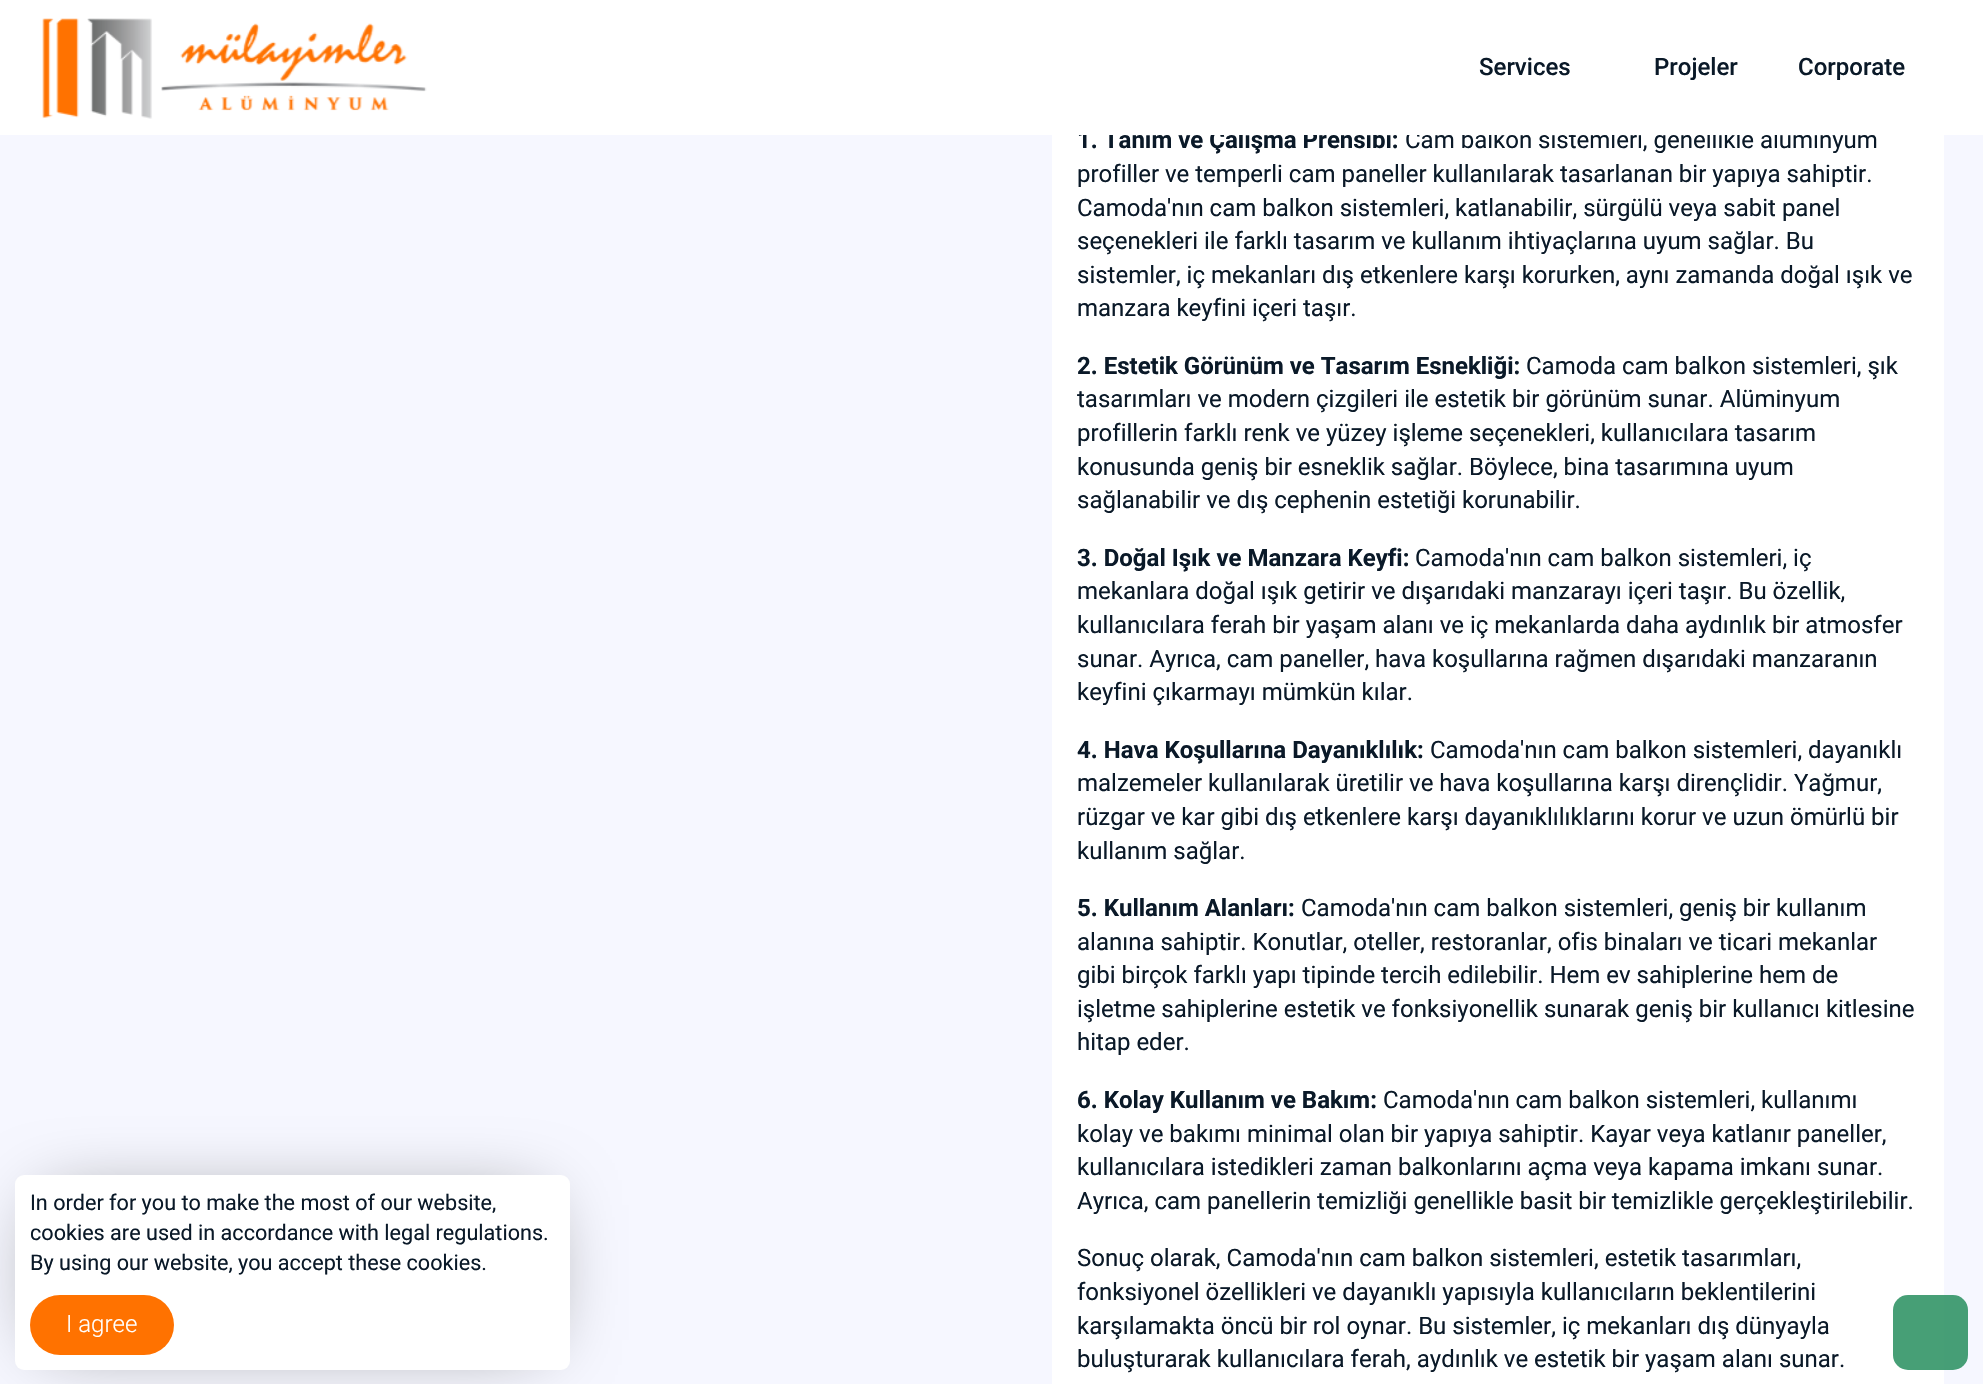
void draw(SkCanvas* canvas) {
    SkPaint paint;
    paint.setAntiAlias(true);
    canvas->clear(0xFFF6F7FF);
    paint.setColor(0xFFFFFFFF);
    canvas->drawRect(SkRect::MakeXYWH(1052, 135, 892, 1249), paint);
    SkFont font1(fontMgr->matchFamilyStyle("Roboto", SkFontStyle::Bold()), 24);
    font1.setSubpixel(true);
    paint.setColor(0xFF0A1928);
    canvas->drawString("1. Tanım ve Çalışma Prensibi:", 1077, 148, font1, paint);
    SkFont font2(fontMgr->matchFamilyStyle("Roboto", SkFontStyle::Normal()), 24);
    font2.setSubpixel(true);
    canvas->drawString("Cam balkon sistemleri, genellikle alüminyum", 1405, 148, font2, paint);
    paint.setColor(0xFFFFFFFF);
    canvas->drawRect(SkRect::MakeXYWH(0, 0, 1983, 135), paint);
    canvas->drawImageRect(SkImages::DeferredFromEncodedData(SkData::MakeFromFileName("img1.png")), SkRect::MakeXYWH(42, 18, 385, 101), SkSamplingOptions());
    SkFont font3(fontMgr->matchFamilyStyle("Roboto", SkFontStyle(500, SkFontStyle::kNormal_Width, SkFontStyle::kUpright_Slant)), 24);
    font3.setSubpixel(true);
    paint.setColor(0xFF0A1928);
    canvas->drawString("Services", 1479, 75, font3, paint);
    canvas->drawString("Projeler", 1654, 75, font3, paint);
    canvas->drawString("Corporate", 1798, 75, font3, paint);
    paint.setColor(0x80000000);
    paint.setMaskFilter(SkMaskFilter::MakeBlur(kNormal_SkBlurStyle, 37.5f));
    canvas->drawRect(SkRect::MakeXYWH(45, 1205, 495, 135), paint);
    paint.setMaskFilter(nullptr);
    paint.setColor(0xFFFFFFFF);
    canvas->drawRoundRect(SkRect::MakeXYWH(15, 1175, 555, 195), 9, 9, paint);
    SkFont font4(fontMgr->matchFamilyStyle("Roboto", SkFontStyle::Normal()), 21.6f);
    font4.setSubpixel(true);
    paint.setColor(0xFF0A1928);
    canvas->drawString("In order for you to make the most of our website,", 30, 1210, font4, paint);
    canvas->drawString("cookies are used in accordance with legal regulations.", 30, 1240, font4, paint);
    canvas->drawString("By using our website, you accept these cookies.", 30, 1270, font4, paint);
    paint.setColor(0xFFFF7200);
    canvas->drawRoundRect(SkRect::MakeXYWH(30, 1295, 144, 60), 30, 30, paint);
    SkFont font5(fontMgr->matchFamilyStyle("Roboto", SkFontStyle(300, SkFontStyle::kNormal_Width, SkFontStyle::kUpright_Slant)), 24);
    font5.setSubpixel(true);
    paint.setColor(0xFFFFFFFF);
    canvas->drawString("I agree", 66, 1332, font5, paint);
    paint.setColor(0xFF0A1928);
    canvas->drawString("profiller ve temperli cam paneller kullanılarak tasarlanan bir yapıya sahiptir.", 1077, 182, font2, paint);
    canvas->drawString("Camoda'nın cam balkon sistemleri, katlanabilir, sürgülü veya sabit panel", 1077, 216, font2, paint);
    canvas->drawString("seçenekleri ile farklı tasarım ve kullanım ihtiyaçlarına uyum sağlar. Bu", 1077, 249, font2, paint);
    canvas->drawString("sistemler, iç mekanları dış etkenlere karşı korurken, aynı zamanda doğal ışık ve", 1077, 283, font2, paint);
    canvas->drawString("manzara keyfini içeri taşır.", 1077, 316, font2, paint);
    canvas->drawString("2. Estetik Görünüm ve Tasarım Esnekliği:", 1077, 374, font1, paint);
    canvas->drawString("Camoda cam balkon sistemleri, şık", 1526, 374, font2, paint);
    canvas->drawString("tasarımları ve modern çizgileri ile estetik bir görünüm sunar. Alüminyum", 1077, 407, font2, paint);
    canvas->drawString("profillerin farklı renk ve yüzey işleme seçenekleri, kullanıcılara tasarım", 1077, 441, font2, paint);
    canvas->drawString("konusunda geniş bir esneklik sağlar. Böylece, bina tasarımına uyum", 1077, 475, font2, paint);
    canvas->drawString("sağlanabilir ve dış cephenin estetiği korunabilir.", 1077, 508, font2, paint);
    canvas->drawString("3. Doğal Işık ve Manzara Keyfi:", 1077, 566, font1, paint);
    canvas->drawString("Camoda'nın cam balkon sistemleri, iç", 1415, 566, font2, paint);
    canvas->drawString("mekanlara doğal ışık getirir ve dışarıdaki manzarayı içeri taşır. Bu özellik,", 1077, 599, font2, paint);
    canvas->drawString("kullanıcılara ferah bir yaşam alanı ve iç mekanlarda daha aydınlık bir atmosfer", 1077, 633, font2, paint);
    canvas->drawString("sunar. Ayrıca, cam paneller, hava koşullarına rağmen dışarıdaki manzaranın", 1077, 667, font2, paint);
    canvas->drawString("keyfini çıkarmayı mümkün kılar.", 1077, 700, font2, paint);
    canvas->drawString("4. Hava Koşullarına Dayanıklılık:", 1077, 758, font1, paint);
    canvas->drawString("Camoda'nın cam balkon sistemleri, dayanıklı", 1430, 758, font2, paint);
    canvas->drawString("malzemeler kullanılarak üretilir ve hava koşullarına karşı dirençlidir. Yağmur,", 1077, 791, font2, paint);
    canvas->drawString("rüzgar ve kar gibi dış etkenlere karşı dayanıklılıklarını korur ve uzun ömürlü bir", 1077, 825, font2, paint);
    canvas->drawString("kullanım sağlar.", 1077, 859, font2, paint);
    canvas->drawString("5. Kullanım Alanları:", 1077, 916, font1, paint);
    canvas->drawString("Camoda'nın cam balkon sistemleri, geniş bir kullanım", 1301, 916, font2, paint);
    canvas->drawString("alanına sahiptir. Konutlar, oteller, restoranlar, ofis binaları ve ticari mekanlar", 1077, 950, font2, paint);
    canvas->drawString("gibi birçok farklı yapı tipinde tercih edilebilir. Hem ev sahiplerine hem de", 1077, 983, font2, paint);
    canvas->drawString("işletme sahiplerine estetik ve fonksiyonellik sunarak geniş bir kullanıcı kitlesine", 1077, 1017, font2, paint);
    canvas->drawString("hitap eder.", 1077, 1050, font2, paint);
    canvas->drawString("6. Kolay Kullanım ve Bakım:", 1077, 1108, font1, paint);
    canvas->drawString("Camoda'nın cam balkon sistemleri, kullanımı", 1383, 1108, font2, paint);
    canvas->drawString("kolay ve bakımı minimal olan bir yapıya sahiptir. Kayar veya katlanır paneller,", 1077, 1142, font2, paint);
    canvas->drawString("kullanıcılara istedikleri zaman balkonlarını açma veya kapama imkanı sunar.", 1077, 1175, font2, paint);
    canvas->drawString("Ayrıca, cam panellerin temizliği genellikle basit bir temizlikle gerçekleştirilebilir.", 1077, 1209, font2, paint);
    canvas->drawString("Sonuç olarak, Camoda'nın cam balkon sistemleri, estetik tasarımları,", 1077, 1266, font2, paint);
    canvas->drawString("fonksiyonel özellikleri ve dayanıklı yapısıyla kullanıcıların beklentilerini", 1077, 1300, font2, paint);
    canvas->drawString("karşılamakta öncü bir rol oynar. Bu sistemler, iç mekanları dış dünyayla", 1077, 1334, font2, paint);
    canvas->drawString("buluşturarak kullanıcılara ferah, aydınlık ve estetik bir yaşam alanı sunar.", 1077, 1367, font2, paint);
    paint.setColor(0xCC198754);
    canvas->drawRoundRect(SkRect::MakeXYWH(1893, 1295, 75, 75), 15, 15, paint);
}
